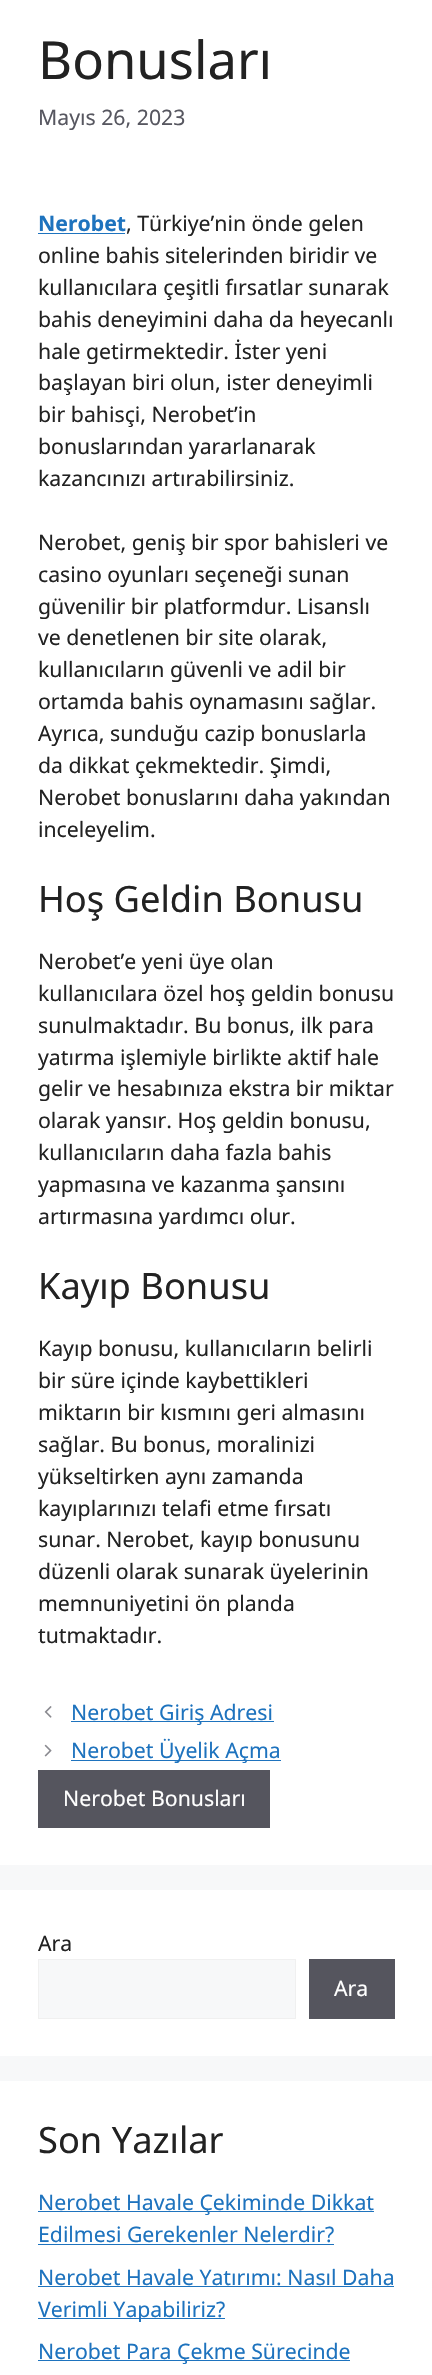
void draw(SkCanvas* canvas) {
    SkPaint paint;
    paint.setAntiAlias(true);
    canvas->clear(0xFFF7F8F9);
    paint.setColor(0xFFFFFFFF);
    canvas->drawRect(SkRect::MakeXYWH(0, 0, 432, 1865), paint);
    SkFont font1(fontMgr->matchFamilyStyle("Noto Sans", SkFontStyle::Normal()), 52.5f);
    font1.setSubpixel(true);
    paint.setColor(0xFF222222);
    canvas->drawString("Bonusları", 38, 79, font1, paint);
    SkFont font2(fontMgr->matchFamilyStyle("Noto Sans", SkFontStyle::Normal()), 21.25f);
    font2.setSubpixel(true);
    paint.setColor(0xFF575760);
    canvas->drawString("Mayıs 26, 2023", 38, 125, font2, paint);
    SkFont font3(fontMgr->matchFamilyStyle("Noto Sans", SkFontStyle::Bold()), 21.25f);
    font3.setSubpixel(true);
    paint.setColor(0xFF1E73BE);
    canvas->drawString("Nerobet", 38, 231, font3, paint);
    canvas->drawRect(SkRect::MakeXYWH(38, 233, 87, 1), paint);
    paint.setColor(0xFF222222);
    canvas->drawString(", Türkiye’nin önde gelen", 126, 231, font2, paint);
    canvas->drawString("online bahis sitelerinden biridir ve", 38, 263, font2, paint);
    canvas->drawString("kullanıcılara çeşitli fırsatlar sunarak", 38, 295, font2, paint);
    canvas->drawString("bahis deneyimini daha da heyecanlı", 38, 327, font2, paint);
    canvas->drawString("hale getirmektedir. İster yeni", 38, 359, font2, paint);
    canvas->drawString("başlayan biri olun, ister deneyimli", 38, 390, font2, paint);
    canvas->drawString("bir bahisçi, Nerobet’in", 38, 422, font2, paint);
    canvas->drawString("bonuslarından yararlanarak", 38, 454, font2, paint);
    canvas->drawString("kazancınızı artırabilirsiniz.", 38, 486, font2, paint);
    canvas->drawString("Nerobet, geniş bir spor bahisleri ve", 38, 550, font2, paint);
    canvas->drawString("casino oyunları seçeneği sunan", 38, 582, font2, paint);
    canvas->drawString("güvenilir bir platformdur. Lisanslı", 38, 614, font2, paint);
    canvas->drawString("ve denetlenen bir site olarak,", 38, 645, font2, paint);
    canvas->drawString("kullanıcıların güvenli ve adil bir", 38, 677, font2, paint);
    canvas->drawString("ortamda bahis oynamasını sağlar.", 38, 709, font2, paint);
    canvas->drawString("Ayrıca, sunduğu cazip bonuslarla", 38, 741, font2, paint);
    canvas->drawString("da dikkat çekmektedir. Şimdi,", 38, 773, font2, paint);
    canvas->drawString("Nerobet bonuslarını daha yakından", 38, 805, font2, paint);
    canvas->drawString("inceleyelim.", 38, 837, font2, paint);
    SkFont font4(fontMgr->matchFamilyStyle("Noto Sans", SkFontStyle::Normal()), 36.25f);
    font4.setSubpixel(true);
    canvas->drawString("Hoş Geldin Bonusu", 38, 912, font4, paint);
    canvas->drawString("Nerobet’e yeni üye olan", 38, 969, font2, paint);
    canvas->drawString("kullanıcılara özel hoş geldin bonusu", 38, 1001, font2, paint);
    canvas->drawString("sunulmaktadır. Bu bonus, ilk para", 38, 1033, font2, paint);
    canvas->drawString("yatırma işlemiyle birlikte aktif hale", 38, 1065, font2, paint);
    canvas->drawString("gelir ve hesabınıza ekstra bir miktar", 38, 1096, font2, paint);
    canvas->drawString("olarak yansır. Hoş geldin bonusu,", 38, 1128, font2, paint);
    canvas->drawString("kullanıcıların daha fazla bahis", 38, 1160, font2, paint);
    canvas->drawString("yapmasına ve kazanma şansını", 38, 1192, font2, paint);
    canvas->drawString("artırmasına yardımcı olur.", 38, 1224, font2, paint);
    canvas->drawString("Kayıp Bonusu", 38, 1299, font4, paint);
    canvas->drawString("Kayıp bonusu, kullanıcıların belirli", 38, 1356, font2, paint);
    canvas->drawString("bir süre içinde kaybettikleri", 38, 1388, font2, paint);
    canvas->drawString("miktarın bir kısmını geri almasını", 38, 1420, font2, paint);
    canvas->drawString("sağlar. Bu bonus, moralinizi", 38, 1452, font2, paint);
    canvas->drawString("yükseltirken aynı zamanda", 38, 1484, font2, paint);
    canvas->drawString("kayıplarınızı telafi etme fırsatı", 38, 1516, font2, paint);
    canvas->drawString("sunar. Nerobet, kayıp bonusunu", 38, 1547, font2, paint);
    canvas->drawString("düzenli olarak sunarak üyelerinin", 38, 1579, font2, paint);
    canvas->drawString("memnuniyetini ön planda", 38, 1611, font2, paint);
    canvas->drawString("tutmaktadır.", 38, 1643, font2, paint);
    canvas->drawImageRect(SkImages::DeferredFromEncodedData(SkData::MakeFromFileName("img1.png")), SkRect::MakeXYWH(44, 1706, 8, 12), SkSamplingOptions());
    paint.setColor(0xFF1E73BE);
    canvas->drawRect(SkRect::MakeXYWH(71, 1721, 203, 1), paint);
    canvas->drawString("Nerobet Giriş Adresi", 71, 1720, font2, paint);
    canvas->drawImageRect(SkImages::DeferredFromEncodedData(SkData::MakeFromFileName("img2.png")), SkRect::MakeXYWH(44, 1744, 8, 13), SkSamplingOptions());
    canvas->drawRect(SkRect::MakeXYWH(71, 1760, 210, 1), paint);
    canvas->drawString("Nerobet Üyelik Açma", 71, 1758, font2, paint);
    paint.setColor(0xFF55555E);
    canvas->drawRect(SkRect::MakeXYWH(38, 1770, 232, 58), paint);
    paint.setColor(0xFFFFFFFF);
    canvas->drawString("Nerobet Bonusları", 63, 1806, font2, paint);
    canvas->drawRect(SkRect::MakeXYWH(0, 1890, 432, 166), paint);
    paint.setColor(0xFF222222);
    canvas->drawString("Ara", 38, 1951, font2, paint);
    paint.setColor(0xFFF7F8F9);
    canvas->drawRect(SkRect::MakeXYWH(38.5f, 1959.5f, 257, 59), paint);
    paint.setStyle(SkPaint::kStroke_Style);
    paint.setStrokeWidth(1);
    paint.setColor(0xFFF0F0F0);
    canvas->drawRect(SkRect::MakeXYWH(38.5f, 1959.5f, 257, 59), paint);
    paint.setStyle(SkPaint::kFill_Style);
    paint.setColor(0xFF55555E);
    canvas->drawRect(SkRect::MakeXYWH(309, 1959, 86, 60), paint);
    paint.setColor(0xFFFFFFFF);
    canvas->drawString("Ara", 334, 1996, font2, paint);
    canvas->drawRect(SkRect::MakeXYWH(0, 2081, 432, 294), paint);
    paint.setColor(0xFF222222);
    canvas->drawString("Son Yazılar", 38, 2153, font4, paint);
    paint.setColor(0xFF1E73BE);
    canvas->drawRect(SkRect::MakeXYWH(38, 2211, 336, 1), paint);
    canvas->drawString("Nerobet Havale Çekiminde Dikkat", 38, 2210, font2, paint);
    canvas->drawString("Edilmesi Gerekenler Nelerdir?", 38, 2242, font2, paint);
    canvas->drawRect(SkRect::MakeXYWH(38, 2244, 296, 1), paint);
    canvas->drawString("Nerobet Havale Yatırımı: Nasıl Daha", 38, 2285, font2, paint);
    canvas->drawRect(SkRect::MakeXYWH(38, 2286, 356, 1), paint);
    canvas->drawRect(SkRect::MakeXYWH(38, 2318, 187, 1), paint);
    canvas->drawString("Verimli Yapabiliriz?", 38, 2317, font2, paint);
    canvas->drawRect(SkRect::MakeXYWH(38, 2360, 312, 1), paint);
    canvas->drawString("Nerobet Para Çekme Sürecinde", 38, 2359, font2, paint);
}
